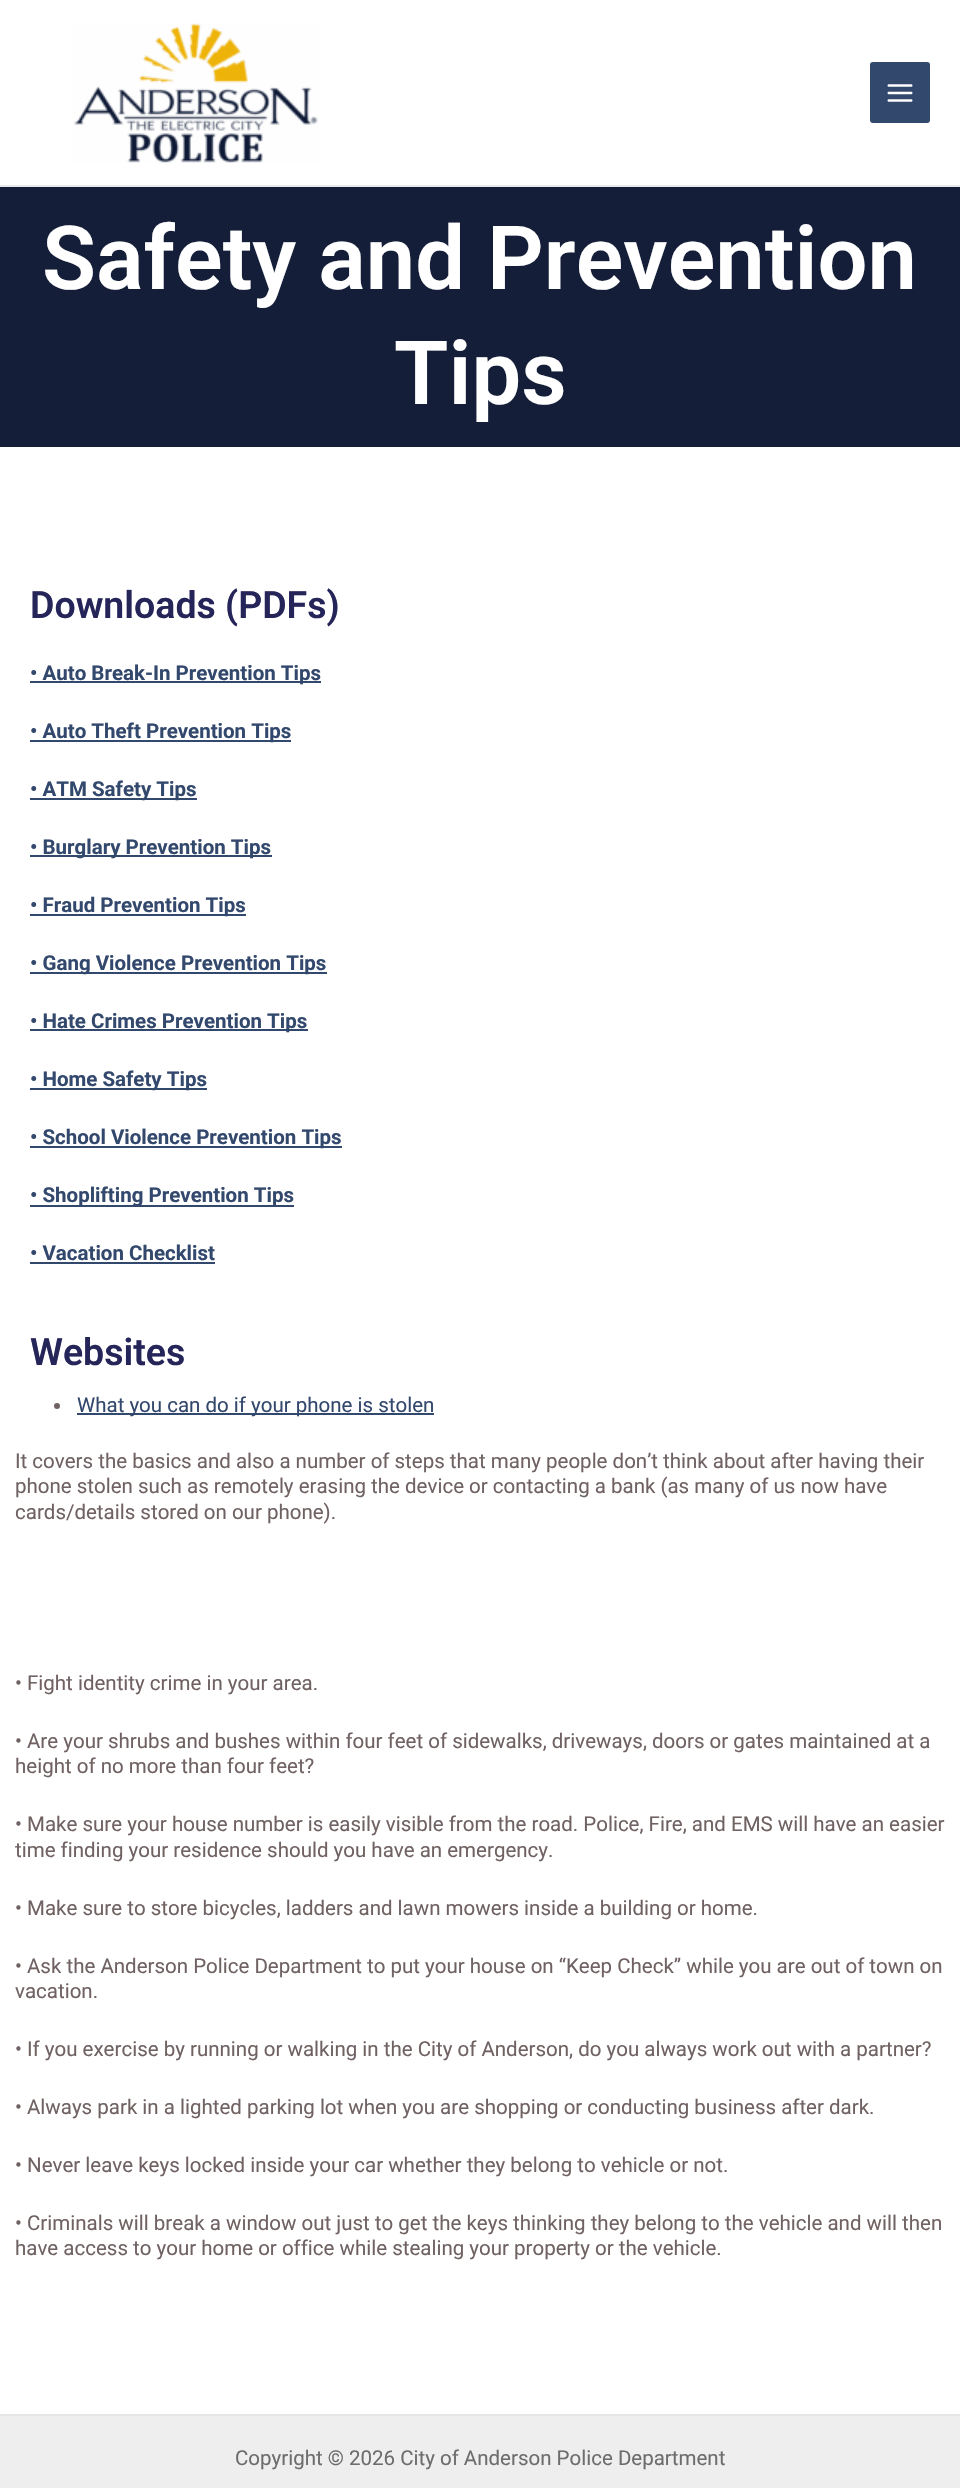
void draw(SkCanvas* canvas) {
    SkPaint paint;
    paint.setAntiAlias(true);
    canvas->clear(0xFFFFFFFF);
    paint.setColor(0xFFEAEAEA);
    canvas->drawRect(SkRect::MakeXYWH(0, 185, 960, 2), paint);
    canvas->drawImageRect(SkImages::DeferredFromEncodedData(SkData::MakeFromFileName("img1.png")), SkRect::MakeXYWH(73, 23, 246, 140), SkSamplingOptions());
    paint.setColor(0xFF33486D);
    canvas->drawRoundRect(SkRect::MakeXYWH(870, 62, 60, 61), 3, 3, paint);
    canvas->drawImageRect(SkImages::DeferredFromEncodedData(SkData::MakeFromFileName("img2.png")), SkRect::MakeXYWH(887, 84, 26, 18), SkSamplingOptions());
    paint.setColor(0xFF151E38);
    canvas->drawRect(SkRect::MakeXYWH(0, 187, 960, 260), paint);
    SkFont font1(fontMgr->matchFamilyStyle("Roboto", SkFontStyle(600, SkFontStyle::kNormal_Width, SkFontStyle::kUpright_Slant)), 88.5f);
    font1.setSubpixel(true);
    paint.setColor(0xFFFFFFFF);
    canvas->drawString("Safety and Prevention", 42, 289, font1, paint);
    canvas->drawString("Tips", 394, 404, font1, paint);
    SkFont font2(fontMgr->matchFamilyStyle("Roboto", SkFontStyle(600, SkFontStyle::kNormal_Width, SkFontStyle::kUpright_Slant)), 37.5f);
    font2.setSubpixel(true);
    paint.setColor(0xFF252559);
    canvas->drawString("Downloads (PDFs)", 30, 618, font2, paint);
    paint.setColor(0xFF33486D);
    canvas->drawRect(SkRect::MakeXYWH(30, 681, 291, 2), paint);
    SkFont font3(fontMgr->matchFamilyStyle("Roboto", SkFontStyle::Bold()), 20.5f);
    font3.setSubpixel(true);
    canvas->drawString("• Auto Break-In Prevention Tips", 30, 680, font3, paint);
    canvas->drawRect(SkRect::MakeXYWH(30, 740, 261, 2), paint);
    canvas->drawString("• Auto Theft Prevention Tips", 30, 738, font3, paint);
    canvas->drawRect(SkRect::MakeXYWH(30, 798, 167, 2), paint);
    canvas->drawString("• ATM Safety Tips", 30, 796, font3, paint);
    canvas->drawRect(SkRect::MakeXYWH(30, 855, 242, 2), paint);
    canvas->drawString("• Burglary Prevention Tips", 30, 854, font3, paint);
    canvas->drawRect(SkRect::MakeXYWH(30, 914, 216, 2), paint);
    canvas->drawString("• Fraud Prevention Tips", 30, 912, font3, paint);
    canvas->drawRect(SkRect::MakeXYWH(30, 972, 297, 2), paint);
    canvas->drawString("• Gang Violence Prevention Tips", 30, 970, font3, paint);
    canvas->drawRect(SkRect::MakeXYWH(30, 1029, 278, 2), paint);
    canvas->drawString("• Hate Crimes Prevention Tips", 30, 1028, font3, paint);
    canvas->drawRect(SkRect::MakeXYWH(30, 1088, 177, 2), paint);
    canvas->drawString("• Home Safety Tips", 30, 1086, font3, paint);
    canvas->drawRect(SkRect::MakeXYWH(30, 1146, 312, 2), paint);
    canvas->drawString("• School Violence Prevention Tips", 30, 1144, font3, paint);
    canvas->drawRect(SkRect::MakeXYWH(30, 1205, 264, 2), paint);
    canvas->drawString("• Shoplifting Prevention Tips", 30, 1202, font3, paint);
    canvas->drawString("• Vacation Checklist", 30, 1260, font3, paint);
    canvas->drawRect(SkRect::MakeXYWH(30, 1262, 185, 2), paint);
    paint.setColor(0xFF252559);
    canvas->drawString("Websites", 30, 1365, font2, paint);
    paint.setColor(0xFF706262);
    canvas->drawCircle(57, 1406, 3, paint);
    paint.setColor(0xFF33486D);
    canvas->drawRect(SkRect::MakeXYWH(77, 1413, 357, 2), paint);
    SkFont font4(fontMgr->matchFamilyStyle("Roboto", SkFontStyle::Normal()), 20.5f);
    font4.setSubpixel(true);
    canvas->drawString("What you can do if your phone is stolen", 77, 1412, font4, paint);
    paint.setColor(0xFF706262);
    canvas->drawString("It covers the basics and also a number of steps that many people don’t think about after having their", 15, 1468, font4, paint);
    canvas->drawString("phone stolen such as remotely erasing the device or contacting a bank (as many of us now have", 15, 1493, font4, paint);
    canvas->drawString("cards/details stored on our phone).", 15, 1519, font4, paint);
    canvas->drawString("• Fight identity crime in your area.", 15, 1690, font4, paint);
    canvas->drawString("• Are your shrubs and bushes within four feet of sidewalks, driveways, doors or gates maintained at a", 15, 1748, font4, paint);
    canvas->drawString("height of no more than four feet?", 15, 1773, font4, paint);
    canvas->drawString("• Make sure your house number is easily visible from the road. Police, Fire, and EMS will have an easier", 15, 1831, font4, paint);
    canvas->drawString("time finding your residence should you have an emergency.", 15, 1857, font4, paint);
    canvas->drawString("• Make sure to store bicycles, ladders and lawn mowers inside a building or home.", 15, 1915, font4, paint);
    canvas->drawString("• Ask the Anderson Police Department to put your house on “Keep Check” while you are out of town on", 15, 1973, font4, paint);
    canvas->drawString("vacation.", 15, 1998, font4, paint);
    canvas->drawString("• If you exercise by running or walking in the City of Anderson, do you always work out with a partner?", 15, 2056, font4, paint);
    canvas->drawString("• Always park in a lighted parking lot when you are shopping or conducting business after dark.", 15, 2114, font4, paint);
    canvas->drawString("• Never leave keys locked inside your car whether they belong to vehicle or not.", 15, 2172, font4, paint);
    canvas->drawString("• Criminals will break a window out just to get the keys thinking they belong to the vehicle and will then", 15, 2230, font4, paint);
    canvas->drawString("have access to your home or office while stealing your property or the vehicle.", 15, 2255, font4, paint);
    paint.setColor(0xFFEEEEEE);
    canvas->drawRect(SkRect::MakeXYWH(0, 2416, 960, 72), paint);
    paint.setColor(0xFFE5E5E5);
    canvas->drawRect(SkRect::MakeXYWH(0, 2414, 960, 2), paint);
    paint.setColor(0xFF6D6D6D);
    canvas->drawString("Copyright © 2026 City of Anderson Police Department", 235, 2465, font4, paint);
}
